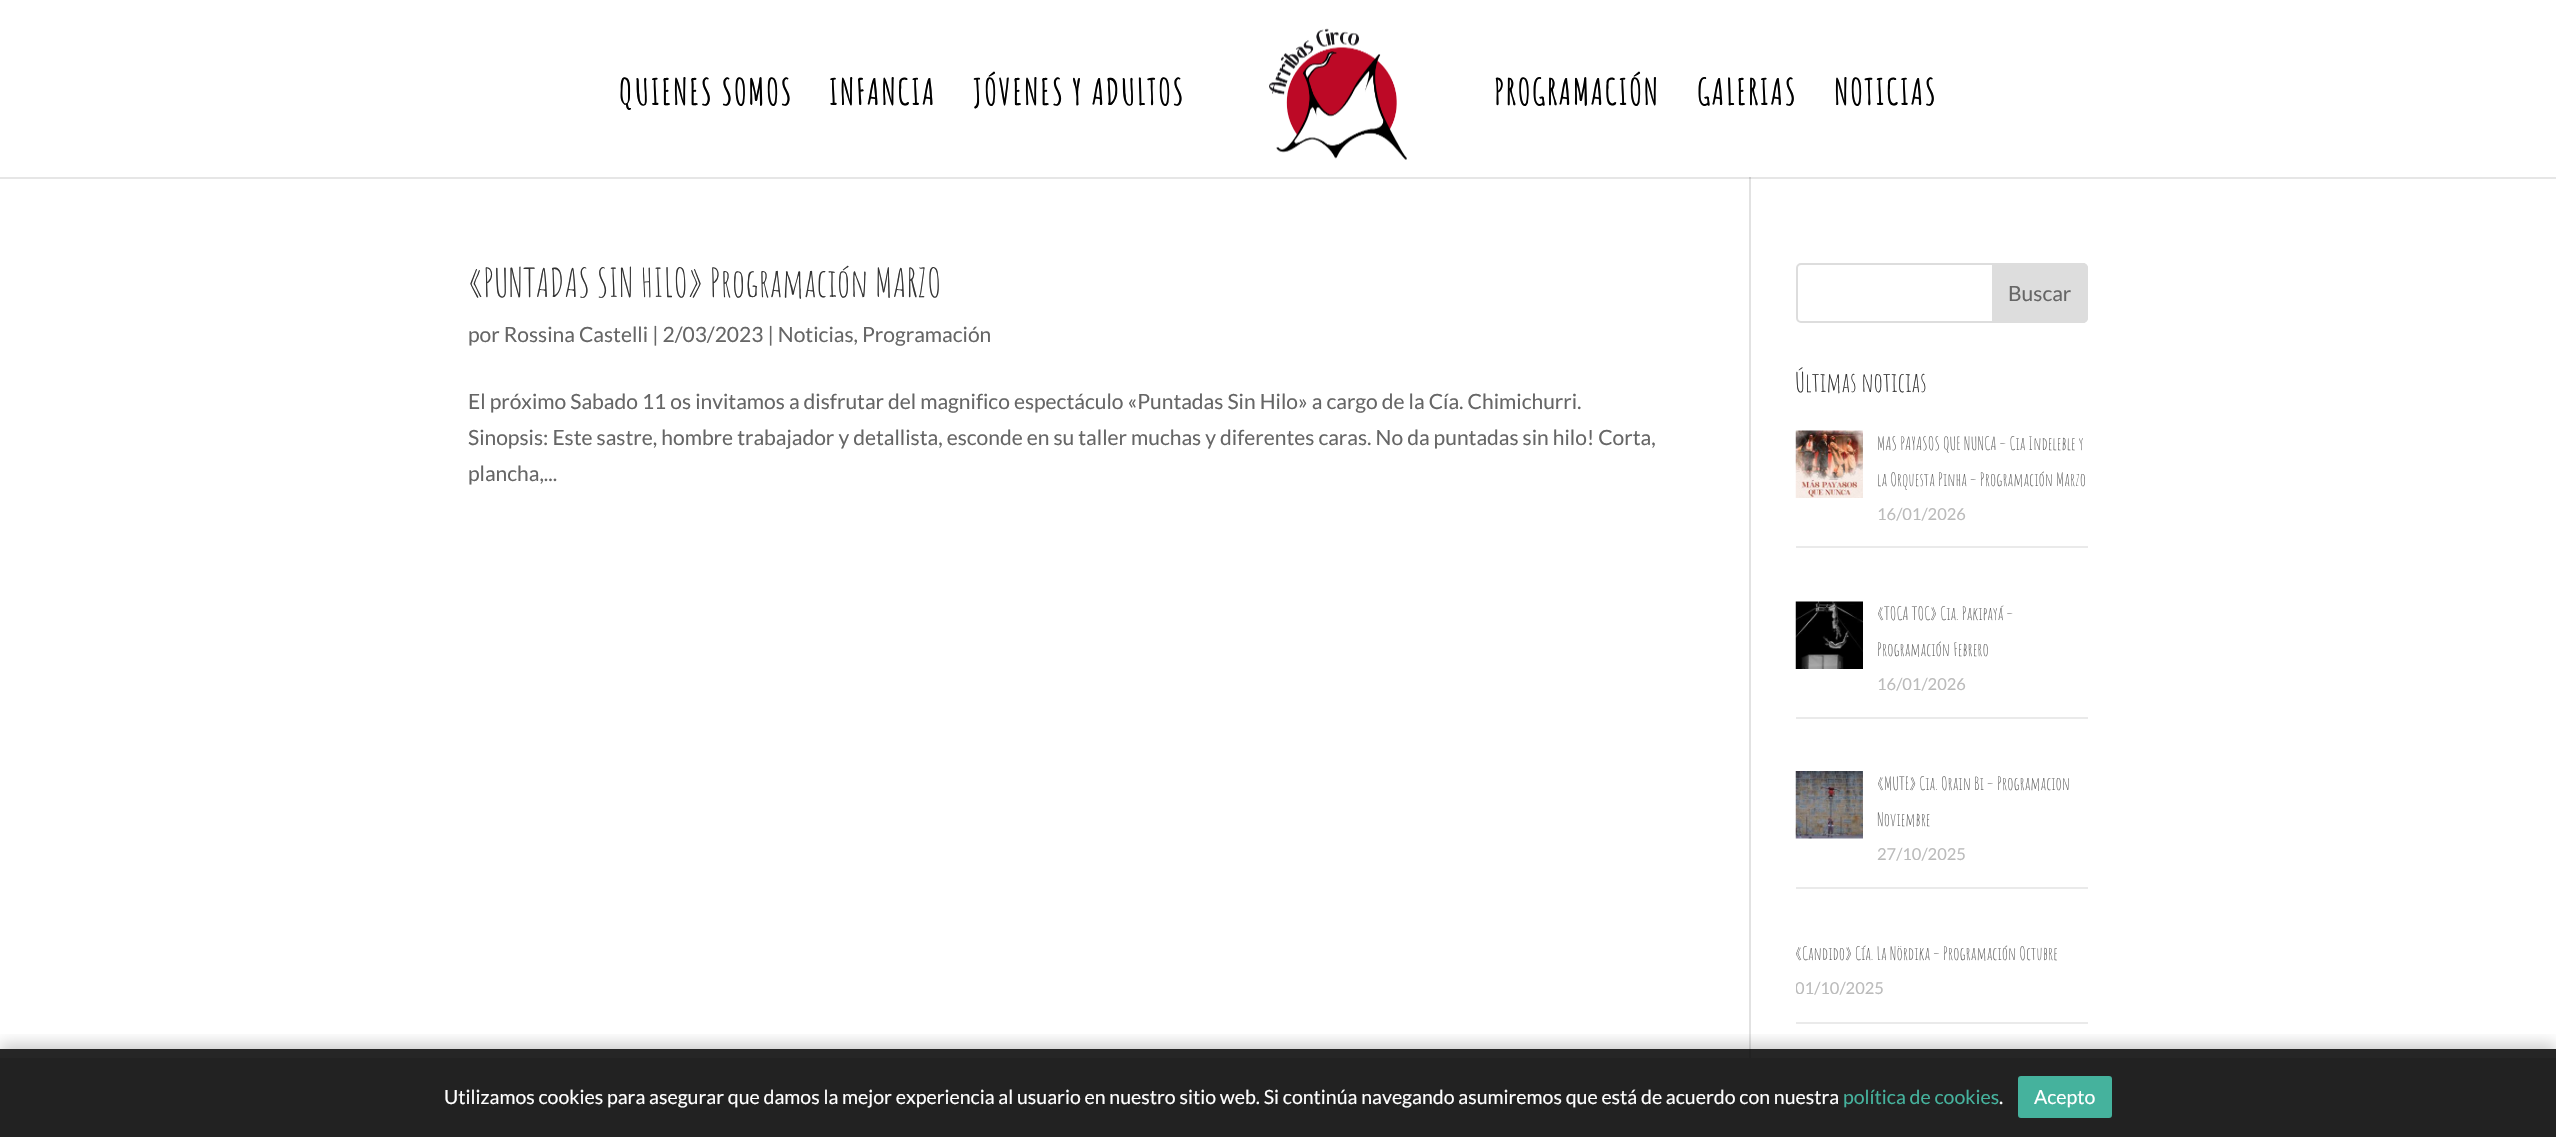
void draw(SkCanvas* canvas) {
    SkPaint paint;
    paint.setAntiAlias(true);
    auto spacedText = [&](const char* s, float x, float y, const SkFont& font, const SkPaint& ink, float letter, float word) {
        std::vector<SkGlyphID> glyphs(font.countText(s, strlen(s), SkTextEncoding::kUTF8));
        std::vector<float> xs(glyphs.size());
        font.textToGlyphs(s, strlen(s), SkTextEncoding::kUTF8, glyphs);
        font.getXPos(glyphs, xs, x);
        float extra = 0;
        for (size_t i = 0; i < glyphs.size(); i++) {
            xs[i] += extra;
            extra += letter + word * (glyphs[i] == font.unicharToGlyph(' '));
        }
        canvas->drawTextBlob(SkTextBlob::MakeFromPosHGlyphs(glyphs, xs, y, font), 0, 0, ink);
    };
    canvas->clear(0xFFFFFFFF);
    paint.setColor(0xFF262626);
    canvas->drawRect(SkRect::MakeXYWH(0, 1049, 2556, 9), paint);
    paint.setColor(0xFFE6E6E6);
    canvas->drawRect(SkRect::MakeXYWH(0, 177, 2556, 2), paint);
    paint.setColor(0xFFE2E2E2);
    canvas->drawRect(SkRect::MakeXYWH(1749, 176, 2, 873), paint);
    paint.setColor(0xFFFFFFFF);
    canvas->drawRect(SkRect::MakeXYWH(1749, 176, 2, 1), paint);
    SkFont font1(fontMgr->matchFamilyStyle("Amatic SC", SkFontStyle::Bold()), 36);
    font1.setSubpixel(true);
    paint.setColor(0xFF000000);
    spacedText("QUIENES SOMOS", 619, 105, font1, paint, 1.5f, 0);
    spacedText("INFANCIA", 829, 105, font1, paint, 1.5f, 0);
    spacedText("JÓVENES Y ADULTOS", 973, 105, font1, paint, 1.5f, 0);
    canvas->drawImageRect(SkImages::DeferredFromEncodedData(SkData::MakeFromFileName("img1.png")), SkRect::MakeXYWH(1269, 28, 138, 132), SkSamplingOptions());
    spacedText("PROGRAMACIÓN", 1494, 105, font1, paint, 1.5f, 0);
    spacedText("GALERIAS", 1697, 105, font1, paint, 1.5f, 0);
    spacedText("NOTICIAS", 1834, 105, font1, paint, 1.5f, 0);
    paint.setColor(0xFF222222);
    canvas->drawRect(SkRect::MakeXYWH(1749, 1049, 2, 9), paint);
    paint.setColor(0xFFCBCBCB);
    canvas->drawRect(SkRect::MakeXYWH(1749, 177, 2, 2), paint);
    SkFont font2(fontMgr->matchFamilyStyle("Amatic SC", SkFontStyle::Normal()), 39);
    font2.setSubpixel(true);
    paint.setColor(0xFF333333);
    canvas->drawString("«PUNTADAS SIN HILO» Programación MARZO", 468, 297, font2, paint);
    SkFont font3(fontMgr->matchFamilyStyle("Lato", SkFontStyle::Normal()), 21);
    font3.setSubpixel(true);
    paint.setColor(0xFF666666);
    canvas->drawString("por Rossina Castelli | 2/03/2023 | Noticias, Programación", 468, 342, font3, paint);
    canvas->drawString("El próximo Sabado 11 os invitamos a disfrutar del magnifico espectáculo «Puntadas Sin Hilo» a cargo de la Cía. Chimichurri.", 468, 409, font3, paint);
    canvas->drawString("Sinopsis: Este sastre, hombre trabajador y detallista, esconde en su taller muchas y diferentes caras. No da puntadas sin hilo! Corta,", 468, 445, font3, paint);
    canvas->drawString("plancha,...", 468, 481, font3, paint);
    paint.setStyle(SkPaint::kStroke_Style);
    paint.setStrokeWidth(2);
    paint.setColor(0xFFDDDDDD);
    canvas->drawRoundRect(SkRect::MakeXYWH(1797, 264, 290, 58), 4, 4, paint);
    paint.setStyle(SkPaint::kFill_Style);
    canvas->drawPath(SkPathBuilder().moveTo(1993, 264).lineTo(2083, 264).cubicTo(2085, 264, 2087, 266, 2087, 268).lineTo(2087, 318).cubicTo(2087, 320, 2085, 322, 2083, 322).lineTo(1993, 322).close().detach(), paint);
    paint.setStyle(SkPaint::kStroke_Style);
    canvas->drawPath(SkPathBuilder().moveTo(1993, 264).lineTo(2083, 264).cubicTo(2085, 264, 2087, 266, 2087, 268).lineTo(2087, 318).cubicTo(2087, 320, 2085, 322, 2083, 322).lineTo(1993, 322).close().detach(), paint);
    paint.setStyle(SkPaint::kFill_Style);
    paint.setColor(0xFF666666);
    canvas->drawString("Buscar", 2008, 301, font3, paint);
    SkFont font4(fontMgr->matchFamilyStyle("Amatic SC", SkFontStyle::Normal()), 27);
    font4.setSubpixel(true);
    paint.setColor(0xFF333333);
    canvas->drawString("Últimas noticias", 1795, 392, font4, paint);
    paint.setColor(0xFFEAEAEA);
    canvas->drawRect(SkRect::MakeXYWH(1796, 546, 292, 2), paint);
    canvas->drawImageRect(SkImages::DeferredFromEncodedData(SkData::MakeFromFileName("img2.png")), SkRect::MakeXYWH(1795, 430, 68, 68), SkSamplingOptions());
    SkFont font5(fontMgr->matchFamilyStyle("Amatic SC", SkFontStyle::Normal()), 18);
    font5.setSubpixel(true);
    paint.setColor(0xFF666666);
    canvas->drawString("MAS PAYASOS QUE NUNCA – Cia Indeleble y", 1877, 450, font5, paint);
    canvas->drawString("la Orquesta Pinha – Programación Marzo", 1877, 486, font5, paint);
    SkFont font6(fontMgr->matchFamilyStyle("Lato", SkFontStyle::Normal()), 16.5f);
    font6.setSubpixel(true);
    paint.setColor(0xFFBBBBBB);
    canvas->drawString("16/01/2026", 1877, 520, font6, paint);
    paint.setColor(0xFFEAEAEA);
    canvas->drawRect(SkRect::MakeXYWH(1796, 717, 292, 2), paint);
    canvas->drawImageRect(SkImages::DeferredFromEncodedData(SkData::MakeFromFileName("img3.png")), SkRect::MakeXYWH(1795, 601, 68, 68), SkSamplingOptions());
    paint.setColor(0xFF666666);
    canvas->drawString("«TOCA TOC» Cia. Pakipayá –", 1877, 620, font5, paint);
    canvas->drawString("Programación Febrero", 1877, 656, font5, paint);
    paint.setColor(0xFFBBBBBB);
    canvas->drawString("16/01/2026", 1877, 690, font6, paint);
    paint.setColor(0xFFEAEAEA);
    canvas->drawRect(SkRect::MakeXYWH(1796, 887, 292, 2), paint);
    canvas->drawImageRect(SkImages::DeferredFromEncodedData(SkData::MakeFromFileName("img4.png")), SkRect::MakeXYWH(1795, 771, 68, 68), SkSamplingOptions());
    paint.setColor(0xFF666666);
    canvas->drawString("«MUTE» Cia. Orain Bi – Programacion", 1877, 790, font5, paint);
    canvas->drawString("Noviembre", 1877, 826, font5, paint);
    paint.setColor(0xFFBBBBBB);
    canvas->drawString("27/10/2025", 1877, 860, font6, paint);
    paint.setColor(0xFFEAEAEA);
    canvas->drawRect(SkRect::MakeXYWH(1796, 1022, 292, 2), paint);
    paint.setColor(0xFF666666);
    canvas->drawString("«Candido» Cía. La Nördika – Programación Octubre", 1795, 960, font5, paint);
    canvas->save();
    canvas->clipRect(SkRect::MakeXYWH(1796, 920, 292, 102));
    paint.setColor(0xFFBBBBBB);
    canvas->drawString("01/10/2025", 1795, 994, font6, paint);
    canvas->restore();
    canvas->save();
    canvas->clipRect(SkRect::MakeXYWH(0, 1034, 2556, 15));
    paint.setColor(0x33000000);
    paint.setMaskFilter(SkMaskFilter::MakeBlur(kNormal_SkBlurStyle, 7.5f));
    canvas->drawRect(SkRect::MakeXYWH(0, 1044, 2556, 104), paint);
    paint.setMaskFilter(nullptr);
    canvas->restore();
    paint.setColor(0xFF222222);
    canvas->drawRect(SkRect::MakeXYWH(0, 1058, 2556, 79), paint);
    SkFont font7(fontMgr->matchFamilyStyle("Lato", SkFontStyle::Normal()), 19.5f);
    font7.setSubpixel(true);
    paint.setColor(0xFFFFFFFF);
    canvas->drawString("Utilizamos cookies para asegurar que damos la mejor experiencia al usuario en nuestro sitio web. Si continúa navegando asumiremos que está de acuerdo con nuestra", 444, 1104, font7, paint);
    paint.setColor(0xFF45B29D);
    canvas->drawString("política de cookies", 1843, 1104, font7, paint);
    paint.setColor(0xFFFFFFFF);
    canvas->drawString(".", 1999, 1104, font7, paint);
    paint.setColor(0xFF45B29D);
    canvas->drawRoundRect(SkRect::MakeXYWH(2019, 1077, 92, 40), 2, 2, paint);
    paint.setStyle(SkPaint::kStroke_Style);
    canvas->drawRoundRect(SkRect::MakeXYWH(2019, 1077, 92, 40), 2, 2, paint);
    paint.setStyle(SkPaint::kFill_Style);
    paint.setColor(0xFFFFFFFF);
    canvas->drawString("Acepto", 2034, 1104, font7, paint);
}
